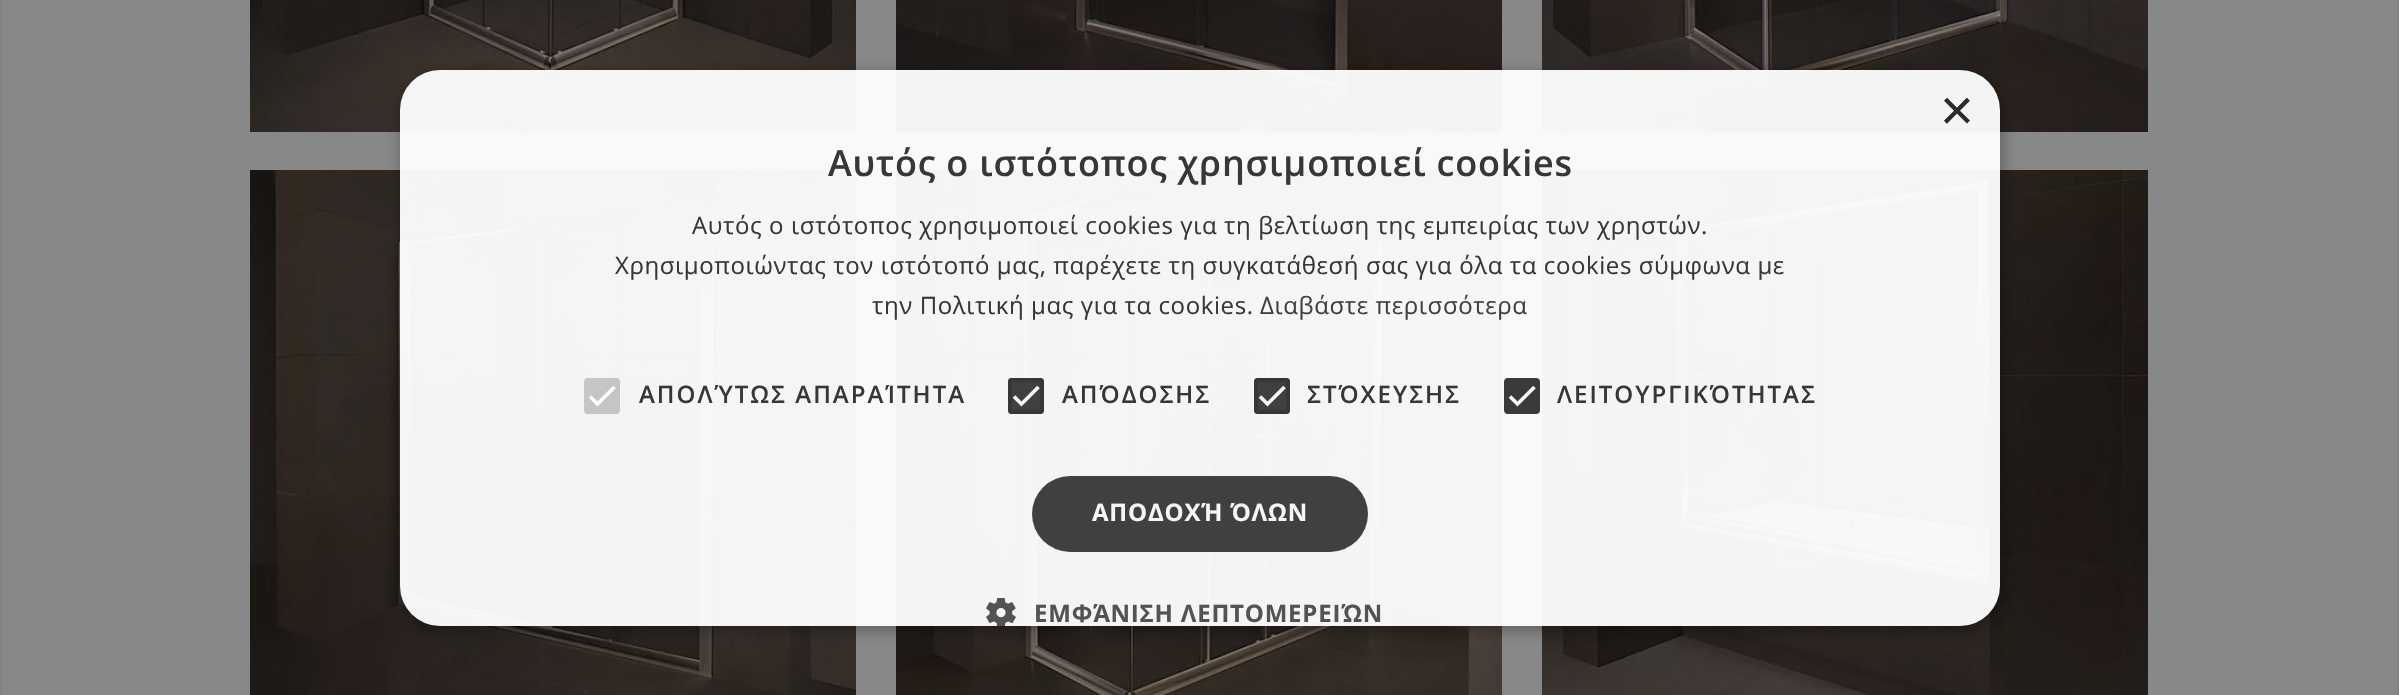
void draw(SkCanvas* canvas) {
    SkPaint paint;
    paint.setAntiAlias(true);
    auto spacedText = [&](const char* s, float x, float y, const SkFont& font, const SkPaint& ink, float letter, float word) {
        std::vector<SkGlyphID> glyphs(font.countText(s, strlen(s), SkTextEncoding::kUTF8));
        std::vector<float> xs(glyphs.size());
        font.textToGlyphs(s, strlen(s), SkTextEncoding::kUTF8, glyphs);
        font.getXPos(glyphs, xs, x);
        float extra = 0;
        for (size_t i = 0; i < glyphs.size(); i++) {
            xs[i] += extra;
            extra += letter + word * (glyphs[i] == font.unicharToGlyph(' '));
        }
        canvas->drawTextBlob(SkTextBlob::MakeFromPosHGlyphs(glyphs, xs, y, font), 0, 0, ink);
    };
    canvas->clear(0xFF888888);
    paint.setColor(0xFF838386);
    canvas->drawRect(SkRect::MakeXYWH(0, 0, 2, 695), paint);
    canvas->drawRect(SkRect::MakeXYWH(600, 132, 2, 38), paint);
    canvas->drawRect(SkRect::MakeXYWH(1200, 132, 2, 38), paint);
    paint.setColor(0xFF7B7B7B);
    canvas->drawRect(SkRect::MakeXYWH(2398, 0, 1, 695), paint);
    paint.setColor(0xFF838386);
    canvas->drawRect(SkRect::MakeXYWH(1800, 132, 2, 38), paint);
    canvas->drawImageRect(SkImages::DeferredFromEncodedData(SkData::MakeFromFileName("img1.png")), SkRect::MakeXYWH(250, 0, 606, 132), SkSamplingOptions());
    canvas->drawImageRect(SkImages::DeferredFromEncodedData(SkData::MakeFromFileName("img2.png")), SkRect::MakeXYWH(896, 0, 606, 132), SkSamplingOptions());
    canvas->drawImageRect(SkImages::DeferredFromEncodedData(SkData::MakeFromFileName("img3.png")), SkRect::MakeXYWH(1542, 0, 606, 132), SkSamplingOptions());
    canvas->drawImageRect(SkImages::DeferredFromEncodedData(SkData::MakeFromFileName("img4.png")), SkRect::MakeXYWH(250, 170, 606, 525), SkSamplingOptions());
    canvas->drawImageRect(SkImages::DeferredFromEncodedData(SkData::MakeFromFileName("img5.png")), SkRect::MakeXYWH(896, 170, 606, 525), SkSamplingOptions());
    canvas->drawImageRect(SkImages::DeferredFromEncodedData(SkData::MakeFromFileName("img6.png")), SkRect::MakeXYWH(1542, 170, 606, 525), SkSamplingOptions());
    canvas->save();
    canvas->clipPath(SkPathBuilder(SkPathFillType::kEvenOdd).moveTo(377, 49).lineTo(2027, 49).lineTo(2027, 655).lineTo(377, 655).close().moveTo(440, 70).lineTo(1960, 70).cubicTo(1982, 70, 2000, 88, 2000, 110).lineTo(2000, 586).cubicTo(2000, 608, 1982, 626, 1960, 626).lineTo(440, 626).cubicTo(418, 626, 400, 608, 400, 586).lineTo(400, 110).cubicTo(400, 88, 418, 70, 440, 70).close().detach(), true);
    paint.setColor(0x54000000);
    paint.setMaskFilter(SkMaskFilter::MakeBlur(kNormal_SkBlurStyle, 8));
    canvas->drawRoundRect(SkRect::MakeXYWH(402, 74, 1600, 556), 40, 40, paint);
    paint.setMaskFilter(nullptr);
    canvas->restore();
    paint.setColor(0xF2FFFFFF);
    canvas->drawRoundRect(SkRect::MakeXYWH(400, 70, 1600, 556), 40, 40, paint);
    SkFont font1(fontMgr->matchFamilyStyle("Liberation Sans", SkFontStyle::Normal()), 58);
    font1.setSubpixel(true);
    paint.setColor(0xFF2C2B2A);
    canvas->drawString("×", 1940, 130, font1, paint);
    SkFont font2(fontMgr->matchFamilyStyle("Open Sans", SkFontStyle(600, SkFontStyle::kNormal_Width, SkFontStyle::kUpright_Slant)), 36);
    font2.setSubpixel(true);
    paint.setColor(0xFF373737);
    spacedText("Αυτός ο ιστότοπος χρησιμοποιεί cookies", 828, 176, font2, paint, 0.8f, 0);
    SkFont font3(fontMgr->matchFamilyStyle("Open Sans", SkFontStyle::Normal()), 24);
    font3.setSubpixel(true);
    spacedText("Αυτός ο ιστότοπος χρησιμοποιεί cookies για τη βελτίωση της εμπειρίας των χρηστών.", 692, 234, font3, paint, 0.6f, 0);
    spacedText("Χρησιμοποιώντας τον ιστότοπό μας, παρέχετε τη συγκατάθεσή σας για όλα τα cookies σύμφωνα με", 615, 274, font3, paint, 0.6f, 0);
    spacedText("την Πολιτική μας για τα cookies.", 872, 314, font3, paint, 0.6f, 0);
    paint.setColor(0xFF404040);
    spacedText("Διαβάστε περισσότερα", 1260, 314, font3, paint, 0.6f, 0);
    paint.setColor(0xFFC5C5C5);
    canvas->drawRoundRect(SkRect::MakeXYWH(584, 378, 36, 36), 4, 4, paint);
    paint.setStyle(SkPaint::kStroke_Style);
    paint.setStrokeWidth(3.6f);
    paint.setColor(0xFFFCFCFC);
    canvas->drawPath(SkPathBuilder().moveTo(590, 396.5f).lineTo(597.5f, 404).lineTo(614.5f, 387).detach(), paint);
    SkFont font4(fontMgr->matchFamilyStyle("Open Sans", SkFontStyle(600, SkFontStyle::kNormal_Width, SkFontStyle::kUpright_Slant)), 24);
    font4.setSubpixel(true);
    paint.setStyle(SkPaint::kFill_Style);
    paint.setColor(0xFF373737);
    spacedText("ΑΠΟΛΎΤΩΣ ΑΠΑΡΑΊΤΗΤΑ", 639, 403, font4, paint, 2, 0);
    paint.setColor(0xF2363636);
    canvas->drawRoundRect(SkRect::MakeXYWH(1008, 378, 36, 36), 4, 4, paint);
    paint.setStyle(SkPaint::kStroke_Style);
    paint.setStrokeWidth(4);
    canvas->drawRoundRect(SkRect::MakeXYWH(1010, 380, 32, 32), 2, 2, paint);
    paint.setStrokeWidth(3.6f);
    paint.setColor(0xFFF5F5F5);
    canvas->drawPath(SkPathBuilder().moveTo(1014, 396.5f).lineTo(1021.5f, 404).lineTo(1038.5f, 387).detach(), paint);
    paint.setStyle(SkPaint::kFill_Style);
    paint.setColor(0xFF373737);
    spacedText("ΑΠΌΔΟΣΗΣ", 1062, 403, font4, paint, 2, 0);
    paint.setColor(0xFF404040);
    canvas->drawRoundRect(SkRect::MakeXYWH(1254, 378, 36, 36), 4, 4, paint);
    paint.setStyle(SkPaint::kStroke_Style);
    paint.setStrokeWidth(4);
    paint.setColor(0xF2363636);
    canvas->drawRoundRect(SkRect::MakeXYWH(1256, 380, 32, 32), 2, 2, paint);
    paint.setStrokeWidth(3.6f);
    paint.setColor(0xFFF5F5F5);
    canvas->drawPath(SkPathBuilder().moveTo(1260, 396.5f).lineTo(1267.5f, 404).lineTo(1284.5f, 387).detach(), paint);
    paint.setStyle(SkPaint::kFill_Style);
    paint.setColor(0xFF373737);
    spacedText("ΣΤΌΧΕΥΣΗΣ", 1307, 403, font4, paint, 2, 0);
    paint.setColor(0xFF3A3A3A);
    canvas->drawRoundRect(SkRect::MakeXYWH(1506, 380, 32, 32), 2, 2, paint);
    paint.setStyle(SkPaint::kStroke_Style);
    paint.setStrokeWidth(4);
    canvas->drawRoundRect(SkRect::MakeXYWH(1506, 380, 32, 32), 2, 2, paint);
    paint.setStrokeWidth(3.6f);
    paint.setColor(0xFFF9F9F9);
    canvas->drawPath(SkPathBuilder().moveTo(1510, 396.5f).lineTo(1517.5f, 404).lineTo(1534.5f, 387).detach(), paint);
    paint.setStyle(SkPaint::kFill_Style);
    paint.setColor(0xFF373737);
    spacedText("ΛΕΙΤΟΥΡΓΙΚΌΤΗΤΑΣ", 1557, 403, font4, paint, 2, 0);
    paint.setColor(0xF2363636);
    canvas->drawRoundRect(SkRect::MakeXYWH(1032, 476, 336, 76), 38, 38, paint);
    SkFont font5(fontMgr->matchFamilyStyle("Open Sans", SkFontStyle::Bold()), 24);
    font5.setSubpixel(true);
    paint.setColor(0xFFF5F5F5);
    spacedText("ΑΠΟΔΟΧΉ ΌΛΩΝ", 1092, 521, font5, paint, 0.8f, 0);
    canvas->drawImageRect(SkImages::DeferredFromEncodedData(SkData::MakeFromFileName("img7.png")), SkRect::MakeXYWH(986, 598, 30, 28), SkSamplingOptions());
    paint.setColor(0xFF535353);
    spacedText("ΕΜΦΆΝΙΣΗ ΛΕΠΤΟΜΕΡΕΙΏΝ", 1034, 622, font5, paint, 0.8f, 0);
}
